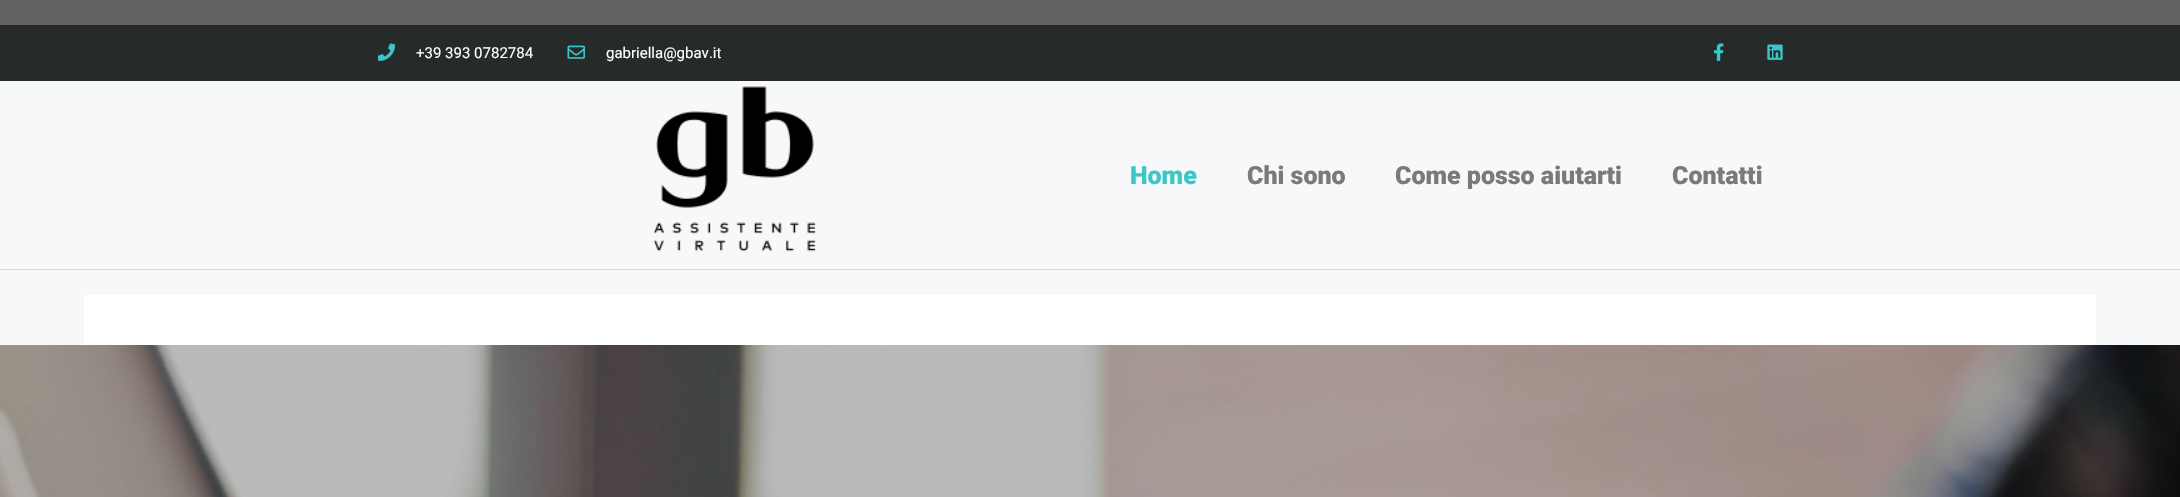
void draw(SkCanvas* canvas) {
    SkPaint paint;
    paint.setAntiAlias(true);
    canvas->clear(0xFFF7F8F9);
    paint.setColor(0xFF636363);
    canvas->drawRect(SkRect::MakeXYWH(0, 0, 2180, 25), paint);
    paint.setColor(0xFF262A2B);
    canvas->drawRect(SkRect::MakeXYWH(0, 25, 2180, 56), paint);
    canvas->drawImageRect(SkImages::DeferredFromEncodedData(SkData::MakeFromFileName("img1.png")), SkRect::MakeXYWH(378, 43, 17, 18), SkSamplingOptions());
    SkFont font1(fontMgr->matchFamilyStyle("Roboto", SkFontStyle::Normal()), 15);
    font1.setSubpixel(true);
    paint.setColor(0xFFFFFFFF);
    canvas->drawString("+39 393 0782784", 416, 58, font1, paint);
    canvas->drawImageRect(SkImages::DeferredFromEncodedData(SkData::MakeFromFileName("img2.png")), SkRect::MakeXYWH(567, 45, 18, 14), SkSamplingOptions());
    canvas->drawString("gabriella@gbav.it", 606, 58, font1, paint);
    canvas->drawImageRect(SkImages::DeferredFromEncodedData(SkData::MakeFromFileName("img3.png")), SkRect::MakeXYWH(1714, 43, 10, 18), SkSamplingOptions());
    canvas->drawImageRect(SkImages::DeferredFromEncodedData(SkData::MakeFromFileName("img4.png")), SkRect::MakeXYWH(1767, 44, 16, 16), SkSamplingOptions());
    paint.setColor(0xFFD8D8D8);
    canvas->drawRect(SkRect::MakeXYWH(0, 269, 2180, 1), paint);
    canvas->drawImageRect(SkImages::DeferredFromEncodedData(SkData::MakeFromFileName("img5.png")), SkRect::MakeXYWH(653, 86, 163, 166), SkSamplingOptions());
    SkFont font2(fontMgr->matchFamilyStyle("Roboto", SkFontStyle(900, SkFontStyle::kNormal_Width, SkFontStyle::kUpright_Slant)), 25);
    font2.setSubpixel(true);
    paint.setColor(0xFF3CC6C6);
    canvas->drawString("Home", 1130, 184, font2, paint);
    paint.setColor(0xFF7A7A7A);
    canvas->drawString("Chi sono", 1247, 184, font2, paint);
    canvas->drawString("Come posso aiutarti", 1395, 184, font2, paint);
    canvas->drawString("Contatti", 1672, 184, font2, paint);
    paint.setColor(0xFFFFFFFF);
    canvas->drawRect(SkRect::MakeXYWH(84, 295, 2012, 50), paint);
    canvas->drawImageRect(SkImages::DeferredFromEncodedData(SkData::MakeFromFileName("img6.png")), SkRect::MakeXYWH(0, 345, 2180, 152), SkSamplingOptions());
}
